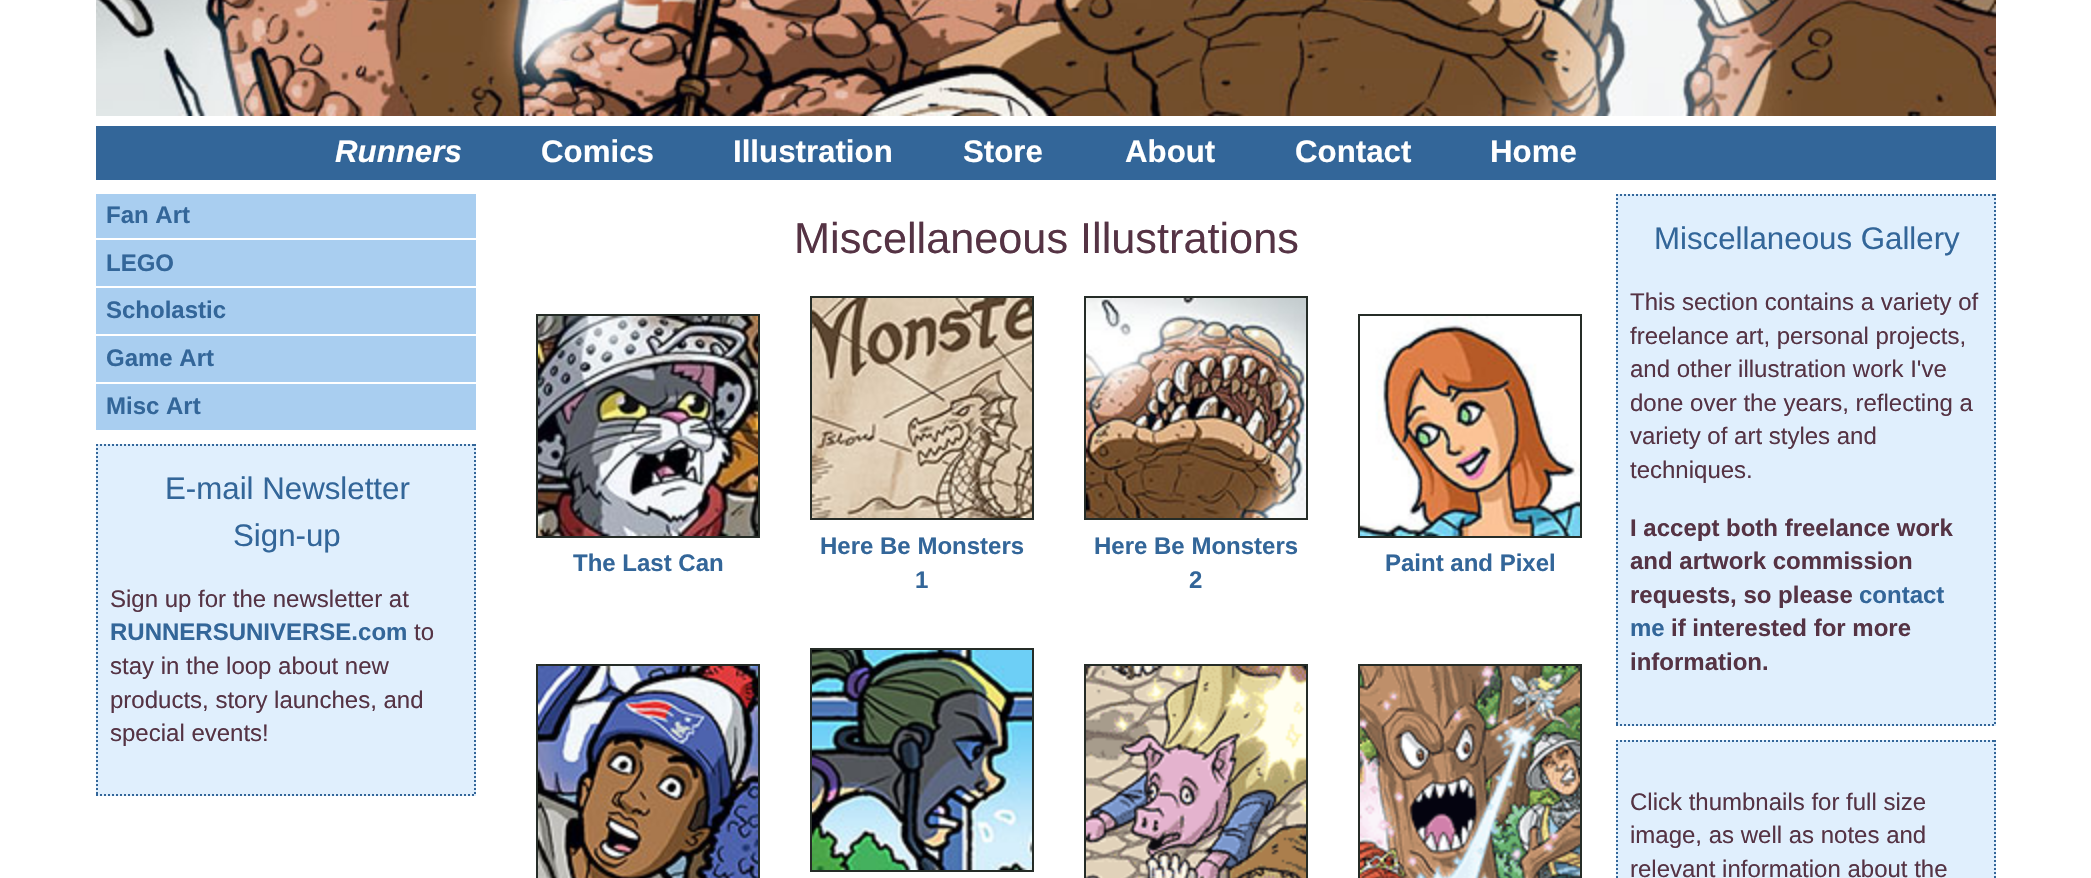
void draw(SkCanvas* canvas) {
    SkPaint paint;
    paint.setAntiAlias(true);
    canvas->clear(0xFFFFFFFF);
    canvas->drawImageRect(SkImages::DeferredFromEncodedData(SkData::MakeFromFileName("img1.png")), SkRect::MakeXYWH(96, 0, 1900, 116), SkSamplingOptions());
    paint.setColor(0xFF336699);
    canvas->drawRect(SkRect::MakeXYWH(96, 126, 1900, 54), paint);
    SkFont font1(fontMgr->matchFamilyStyle("Liberation Sans", SkFontStyle::BoldItalic()), 31.25f);
    font1.setSubpixel(true);
    paint.setColor(0xFFFFFFFF);
    canvas->drawString("Runners", 335, 162, font1, paint);
    SkFont font2(fontMgr->matchFamilyStyle("Liberation Sans", SkFontStyle::Bold()), 31.25f);
    font2.setSubpixel(true);
    canvas->drawString("Comics", 541, 162, font2, paint);
    canvas->drawString("Illustration", 733, 162, font2, paint);
    canvas->drawString("Store", 963, 162, font2, paint);
    canvas->drawString("About", 1125, 162, font2, paint);
    canvas->drawString("Contact", 1295, 162, font2, paint);
    canvas->drawString("Home", 1490, 162, font2, paint);
    paint.setColor(0xFFA9CEF0);
    canvas->drawRect(SkRect::MakeXYWH(96, 194, 380, 44), paint);
    SkFont font3(fontMgr->matchFamilyStyle("Liberation Sans", SkFontStyle::Bold()), 24);
    font3.setSubpixel(true);
    paint.setColor(0xFF336699);
    canvas->drawString("Fan Art", 106, 223, font3, paint);
    paint.setColor(0xFFA9CEF0);
    canvas->drawRect(SkRect::MakeXYWH(96, 240, 380, 46), paint);
    paint.setColor(0xFF336699);
    canvas->drawString("LEGO", 106, 271, font3, paint);
    paint.setColor(0xFFA9CEF0);
    canvas->drawRect(SkRect::MakeXYWH(96, 288, 380, 46), paint);
    paint.setColor(0xFF336699);
    canvas->drawString("Scholastic", 106, 318, font3, paint);
    paint.setColor(0xFFA9CEF0);
    canvas->drawRect(SkRect::MakeXYWH(96, 336, 380, 46), paint);
    paint.setColor(0xFF336699);
    canvas->drawString("Game Art", 106, 366, font3, paint);
    paint.setColor(0xFFA9CEF0);
    canvas->drawRect(SkRect::MakeXYWH(96, 384, 380, 46), paint);
    paint.setColor(0xFF336699);
    canvas->drawString("Misc Art", 106, 414, font3, paint);
    paint.setColor(0xFFE0EFFD);
    canvas->drawRect(SkRect::MakeXYWH(96, 444, 380, 352), paint);
    paint.setStyle(SkPaint::kStroke_Style);
    paint.setStrokeWidth(2);
    paint.setColor(0xFF336699);
    paint.setPathEffect(SkDashPathEffect::Make({{2, 2}}, 0));
    canvas->drawPath(SkPathBuilder().moveTo(96, 445).lineTo(476, 445).detach(), paint);
    paint.setPathEffect(nullptr);
    paint.setPathEffect(SkDashPathEffect::Make({{2, 2}}, 0));
    canvas->drawPath(SkPathBuilder().moveTo(475, 444).lineTo(475, 796).detach(), paint);
    paint.setPathEffect(nullptr);
    paint.setPathEffect(SkDashPathEffect::Make({{2, 2}}, 0));
    canvas->drawPath(SkPathBuilder().moveTo(96, 795).lineTo(476, 795).detach(), paint);
    paint.setPathEffect(nullptr);
    paint.setPathEffect(SkDashPathEffect::Make({{2, 2}}, 0));
    canvas->drawPath(SkPathBuilder().moveTo(97, 444).lineTo(97, 796).detach(), paint);
    paint.setPathEffect(nullptr);
    SkFont font4(fontMgr->matchFamilyStyle("Liberation Sans", SkFontStyle::Normal()), 31.25f);
    font4.setSubpixel(true);
    paint.setStyle(SkPaint::kFill_Style);
    canvas->drawString("E-mail Newsletter", 165, 499, font4, paint);
    canvas->drawString("Sign-up", 233, 546, font4, paint);
    SkFont font5(fontMgr->matchFamilyStyle("Liberation Sans", SkFontStyle::Normal()), 24);
    font5.setSubpixel(true);
    paint.setColor(0xFF553344);
    canvas->drawString("Sign up for the newsletter at", 110, 607, font5, paint);
    paint.setColor(0xFF336699);
    canvas->drawString("RUNNERSUNIVERSE.com", 110, 640, font3, paint);
    paint.setColor(0xFF553344);
    canvas->drawString("to", 414, 640, font5, paint);
    canvas->drawString("stay in the loop about new", 110, 674, font5, paint);
    canvas->drawString("products, story launches, and", 110, 708, font5, paint);
    canvas->drawString("special events!", 110, 741, font5, paint);
    SkFont font6(fontMgr->matchFamilyStyle("Liberation Sans", SkFontStyle::Normal()), 43.25f);
    font6.setSubpixel(true);
    canvas->drawString("Miscellaneous Illustrations", 794, 253, font6, paint);
    paint.setStyle(SkPaint::kStroke_Style);
    paint.setColor(0xFF252C27);
    canvas->drawRect(SkRect::MakeXYWH(537, 315, 222, 222), paint);
    canvas->drawImageRect(SkImages::DeferredFromEncodedData(SkData::MakeFromFileName("img2.png")), SkRect::MakeXYWH(538, 316, 220, 220), SkSamplingOptions());
    paint.setStyle(SkPaint::kFill_Style);
    paint.setColor(0xFF336699);
    canvas->drawString("The Last Can", 573, 571, font3, paint);
    paint.setStyle(SkPaint::kStroke_Style);
    paint.setColor(0xFF252C27);
    canvas->drawRect(SkRect::MakeXYWH(811, 297, 222, 222), paint);
    canvas->drawImageRect(SkImages::DeferredFromEncodedData(SkData::MakeFromFileName("img3.png")), SkRect::MakeXYWH(812, 298, 220, 220), SkSamplingOptions());
    paint.setStyle(SkPaint::kFill_Style);
    paint.setColor(0xFF336699);
    canvas->drawString("Here Be Monsters", 820, 554, font3, paint);
    canvas->drawString("1", 915, 588, font3, paint);
    paint.setStyle(SkPaint::kStroke_Style);
    paint.setColor(0xFF252C27);
    canvas->drawRect(SkRect::MakeXYWH(1085, 297, 222, 222), paint);
    canvas->drawImageRect(SkImages::DeferredFromEncodedData(SkData::MakeFromFileName("img4.png")), SkRect::MakeXYWH(1086, 298, 220, 220), SkSamplingOptions());
    paint.setStyle(SkPaint::kFill_Style);
    paint.setColor(0xFF336699);
    canvas->drawString("Here Be Monsters", 1094, 554, font3, paint);
    canvas->drawString("2", 1189, 588, font3, paint);
    paint.setStyle(SkPaint::kStroke_Style);
    paint.setColor(0xFF252C27);
    canvas->drawRect(SkRect::MakeXYWH(1359, 315, 222, 222), paint);
    canvas->drawImageRect(SkImages::DeferredFromEncodedData(SkData::MakeFromFileName("img5.png")), SkRect::MakeXYWH(1360, 316, 220, 220), SkSamplingOptions());
    paint.setStyle(SkPaint::kFill_Style);
    paint.setColor(0xFF336699);
    canvas->drawString("Paint and Pixel", 1385, 571, font3, paint);
    paint.setStyle(SkPaint::kStroke_Style);
    paint.setColor(0xFF252C27);
    canvas->drawRect(SkRect::MakeXYWH(537, 665, 222, 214), paint);
    canvas->drawImageRect(SkImages::DeferredFromEncodedData(SkData::MakeFromFileName("img6.png")), SkRect::MakeXYWH(538, 666, 220, 212), SkSamplingOptions());
    canvas->drawRect(SkRect::MakeXYWH(811, 649, 222, 222), paint);
    canvas->drawImageRect(SkImages::DeferredFromEncodedData(SkData::MakeFromFileName("img7.png")), SkRect::MakeXYWH(812, 650, 220, 220), SkSamplingOptions());
    canvas->drawRect(SkRect::MakeXYWH(1085, 665, 222, 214), paint);
    canvas->drawImageRect(SkImages::DeferredFromEncodedData(SkData::MakeFromFileName("img8.png")), SkRect::MakeXYWH(1086, 666, 220, 212), SkSamplingOptions());
    canvas->drawRect(SkRect::MakeXYWH(1359, 665, 222, 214), paint);
    canvas->drawImageRect(SkImages::DeferredFromEncodedData(SkData::MakeFromFileName("img9.png")), SkRect::MakeXYWH(1360, 666, 220, 212), SkSamplingOptions());
    paint.setStyle(SkPaint::kFill_Style);
    paint.setColor(0xFFE0EFFD);
    canvas->drawRect(SkRect::MakeXYWH(1616, 194, 380, 532), paint);
    paint.setStyle(SkPaint::kStroke_Style);
    paint.setColor(0xFF336699);
    paint.setPathEffect(SkDashPathEffect::Make({{2, 2}}, 0));
    canvas->drawPath(SkPathBuilder().moveTo(1616, 195).lineTo(1996, 195).detach(), paint);
    paint.setPathEffect(nullptr);
    paint.setPathEffect(SkDashPathEffect::Make({{2, 2}}, 0));
    canvas->drawPath(SkPathBuilder().moveTo(1995, 194).lineTo(1995, 726).detach(), paint);
    paint.setPathEffect(nullptr);
    paint.setPathEffect(SkDashPathEffect::Make({{2, 2}}, 0));
    canvas->drawPath(SkPathBuilder().moveTo(1616, 725).lineTo(1996, 725).detach(), paint);
    paint.setPathEffect(nullptr);
    paint.setPathEffect(SkDashPathEffect::Make({{2, 2}}, 0));
    canvas->drawPath(SkPathBuilder().moveTo(1617, 194).lineTo(1617, 726).detach(), paint);
    paint.setPathEffect(nullptr);
    paint.setStyle(SkPaint::kFill_Style);
    canvas->drawString("Miscellaneous Gallery", 1654, 249, font4, paint);
    paint.setColor(0xFF553344);
    canvas->drawString("This section contains a variety of", 1630, 310, font5, paint);
    canvas->drawString("freelance art, personal projects,", 1630, 344, font5, paint);
    canvas->drawString("and other illustration work I've", 1630, 377, font5, paint);
    canvas->drawString("done over the years, reflecting a", 1630, 411, font5, paint);
    canvas->drawString("variety of art styles and", 1630, 444, font5, paint);
    canvas->drawString("techniques.", 1630, 478, font5, paint);
    canvas->drawString("I accept both freelance work", 1630, 536, font3, paint);
    canvas->drawString("and artwork commission", 1630, 569, font3, paint);
    canvas->drawString("requests, so please", 1630, 603, font3, paint);
    paint.setColor(0xFF336699);
    canvas->drawString("contact", 1859, 603, font3, paint);
    canvas->drawString("me", 1630, 636, font3, paint);
    paint.setColor(0xFF553344);
    canvas->drawString("if interested for more", 1671, 636, font3, paint);
    canvas->drawString("information.", 1630, 670, font3, paint);
    paint.setColor(0xFFE0EFFD);
    canvas->drawRect(SkRect::MakeXYWH(1616, 740, 380, 138), paint);
    paint.setStyle(SkPaint::kStroke_Style);
    paint.setColor(0xFF336699);
    paint.setPathEffect(SkDashPathEffect::Make({{2, 2}}, 0));
    canvas->drawPath(SkPathBuilder().moveTo(1616, 741).lineTo(1996, 741).detach(), paint);
    paint.setPathEffect(nullptr);
    paint.setPathEffect(SkDashPathEffect::Make({{2, 2}}, 0));
    canvas->drawPath(SkPathBuilder().moveTo(1995, 740).lineTo(1995, 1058).detach(), paint);
    paint.setPathEffect(nullptr);
    paint.setPathEffect(SkDashPathEffect::Make({{2, 2}}, 0));
    canvas->drawPath(SkPathBuilder().moveTo(1617, 740).lineTo(1617, 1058).detach(), paint);
    paint.setPathEffect(nullptr);
    paint.setStyle(SkPaint::kFill_Style);
    paint.setColor(0xFF553344);
    canvas->drawString("Click thumbnails for full size", 1630, 810, font5, paint);
    canvas->drawString("image, as well as notes and", 1630, 843, font5, paint);
    canvas->drawString("relevant information about the", 1630, 877, font5, paint);
}
